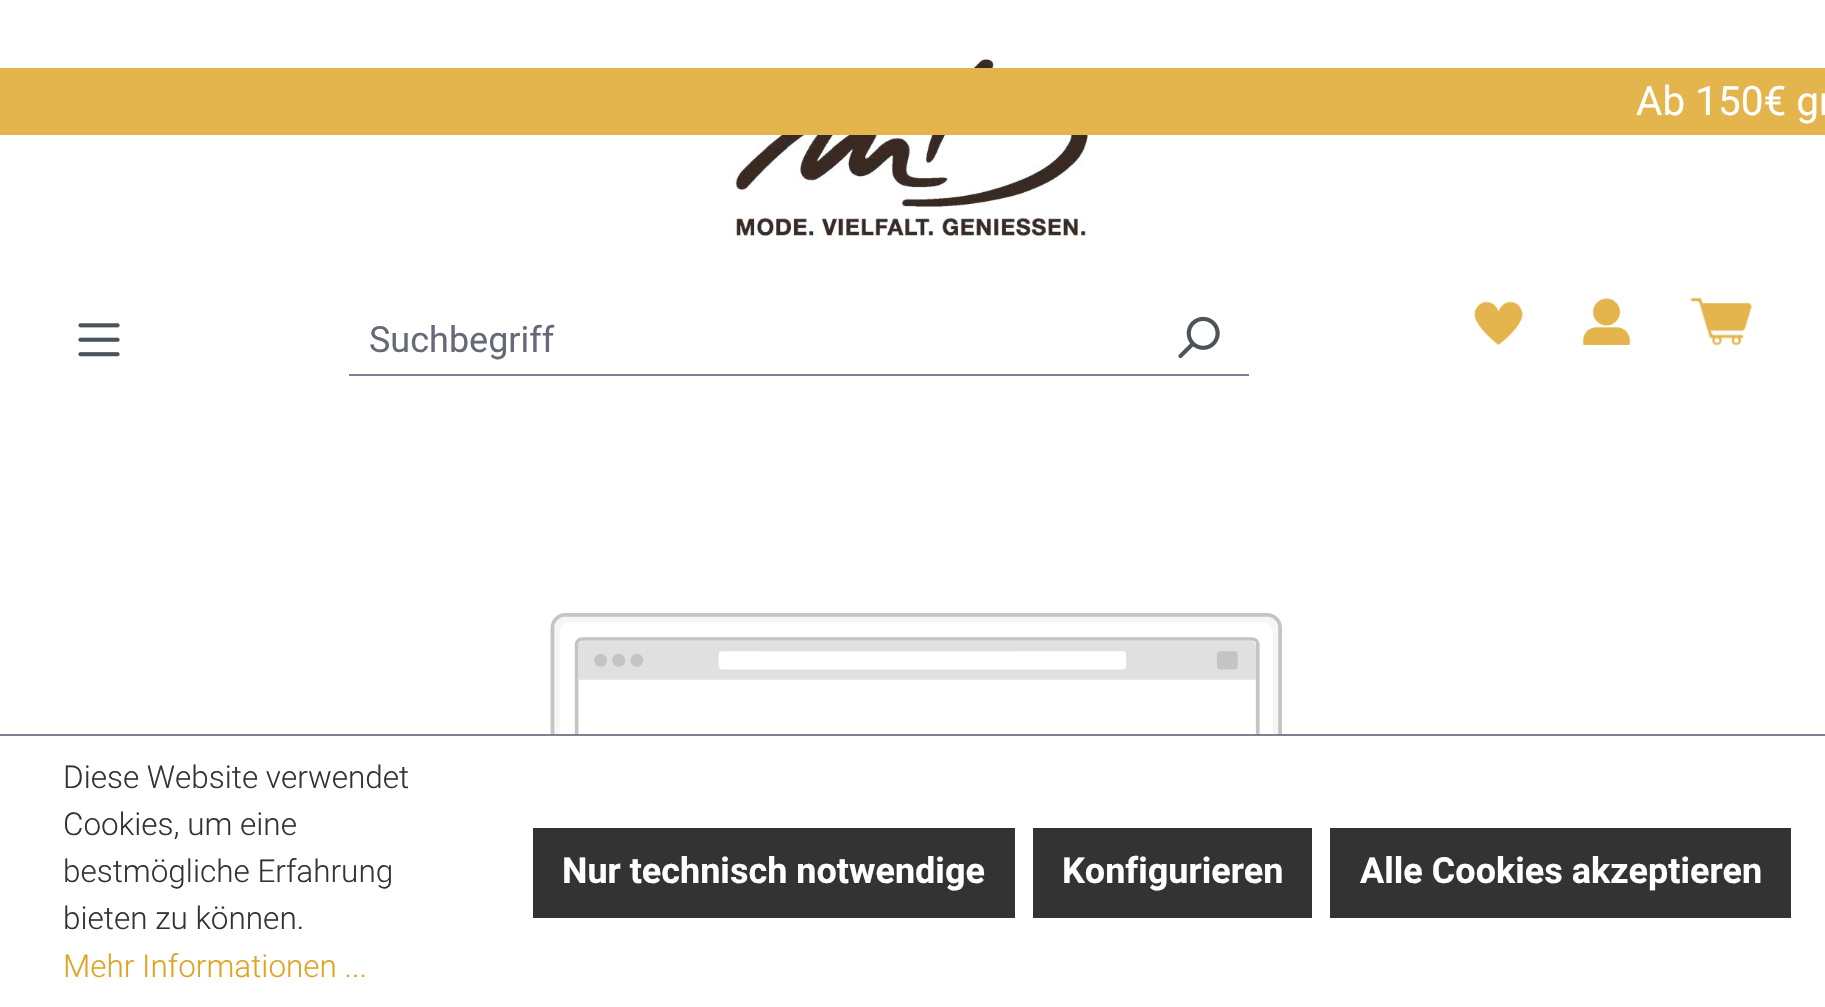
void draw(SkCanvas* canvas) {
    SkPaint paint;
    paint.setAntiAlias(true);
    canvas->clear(0xFFFFFFFF);
    canvas->drawImageRect(SkImages::DeferredFromEncodedData(SkData::MakeFromFileName("img1.png")), SkRect::MakeXYWH(734, 55, 354, 181), SkSamplingOptions());
    paint.setColor(0xFFE5B54D);
    canvas->drawRect(SkRect::MakeXYWH(0, 68, 1825, 67), paint);
    SkFont font1(fontMgr->matchFamilyStyle("Roboto", SkFontStyle::Normal()), 40.5f);
    font1.setSubpixel(true);
    paint.setColor(0xFFFFFFFF);
    canvas->drawString("Ab 150€ gr", 1636, 115, font1, paint);
    canvas->drawImageRect(SkImages::DeferredFromEncodedData(SkData::MakeFromFileName("img2.png")), SkRect::MakeXYWH(78, 323, 42, 34), SkSamplingOptions());
    paint.setColor(0xFF798490);
    canvas->drawRect(SkRect::MakeXYWH(349, 374, 900, 2), paint);
    SkFont font2(fontMgr->matchFamilyStyle("Roboto", SkFontStyle::Normal()), 36);
    font2.setSubpixel(true);
    paint.setColor(0xFF666977);
    canvas->drawString("Suchbegriff", 369, 352, font2, paint);
    canvas->drawImageRect(SkImages::DeferredFromEncodedData(SkData::MakeFromFileName("img3.png")), SkRect::MakeXYWH(1178, 316, 42, 43), SkSamplingOptions());
    canvas->drawImageRect(SkImages::DeferredFromEncodedData(SkData::MakeFromFileName("img4.png")), SkRect::MakeXYWH(1474, 301, 49, 44), SkSamplingOptions());
    canvas->drawImageRect(SkImages::DeferredFromEncodedData(SkData::MakeFromFileName("img5.png")), SkRect::MakeXYWH(1583, 298, 47, 47), SkSamplingOptions());
    canvas->drawImageRect(SkImages::DeferredFromEncodedData(SkData::MakeFromFileName("img6.png")), SkRect::MakeXYWH(1690, 298, 62, 48), SkSamplingOptions());
    canvas->drawImageRect(SkImages::DeferredFromEncodedData(SkData::MakeFromFileName("img7.png")), SkRect::MakeXYWH(550, 613, 732, 121), SkSamplingOptions());
    paint.setColor(0xFF798490);
    canvas->drawRect(SkRect::MakeXYWH(0, 734, 1825, 2), paint);
    SkFont font3(fontMgr->matchFamilyStyle("Roboto", SkFontStyle(300, SkFontStyle::kNormal_Width, SkFontStyle::kUpright_Slant)), 31.5f);
    font3.setSubpixel(true);
    paint.setColor(0xFF333333);
    canvas->drawString("Diese Website verwendet", 63, 788, font3, paint);
    canvas->drawString("Cookies, um eine", 63, 835, font3, paint);
    canvas->drawString("bestmögliche Erfahrung", 63, 882, font3, paint);
    canvas->drawString("bieten zu können.", 63, 929, font3, paint);
    paint.setColor(0xFFDFA320);
    canvas->drawString("Mehr Informationen ...", 63, 977, font3, paint);
    paint.setColor(0xFF333333);
    canvas->drawRect(SkRect::MakeXYWH(533, 828, 482, 90), paint);
    SkFont font4(fontMgr->matchFamilyStyle("Roboto", SkFontStyle::Bold()), 36);
    font4.setSubpixel(true);
    paint.setColor(0xFFFFFFFF);
    canvas->drawString("Nur technisch notwendige", 562, 883, font4, paint);
    paint.setColor(0xFF333333);
    canvas->drawRect(SkRect::MakeXYWH(1033, 828, 279, 90), paint);
    paint.setColor(0xFFFFFFFF);
    canvas->drawString("Konfigurieren", 1062, 883, font4, paint);
    paint.setColor(0xFF333333);
    canvas->drawRect(SkRect::MakeXYWH(1330, 828, 461, 90), paint);
    paint.setColor(0xFFFFFFFF);
    canvas->drawString("Alle Cookies akzeptieren", 1360, 883, font4, paint);
}
